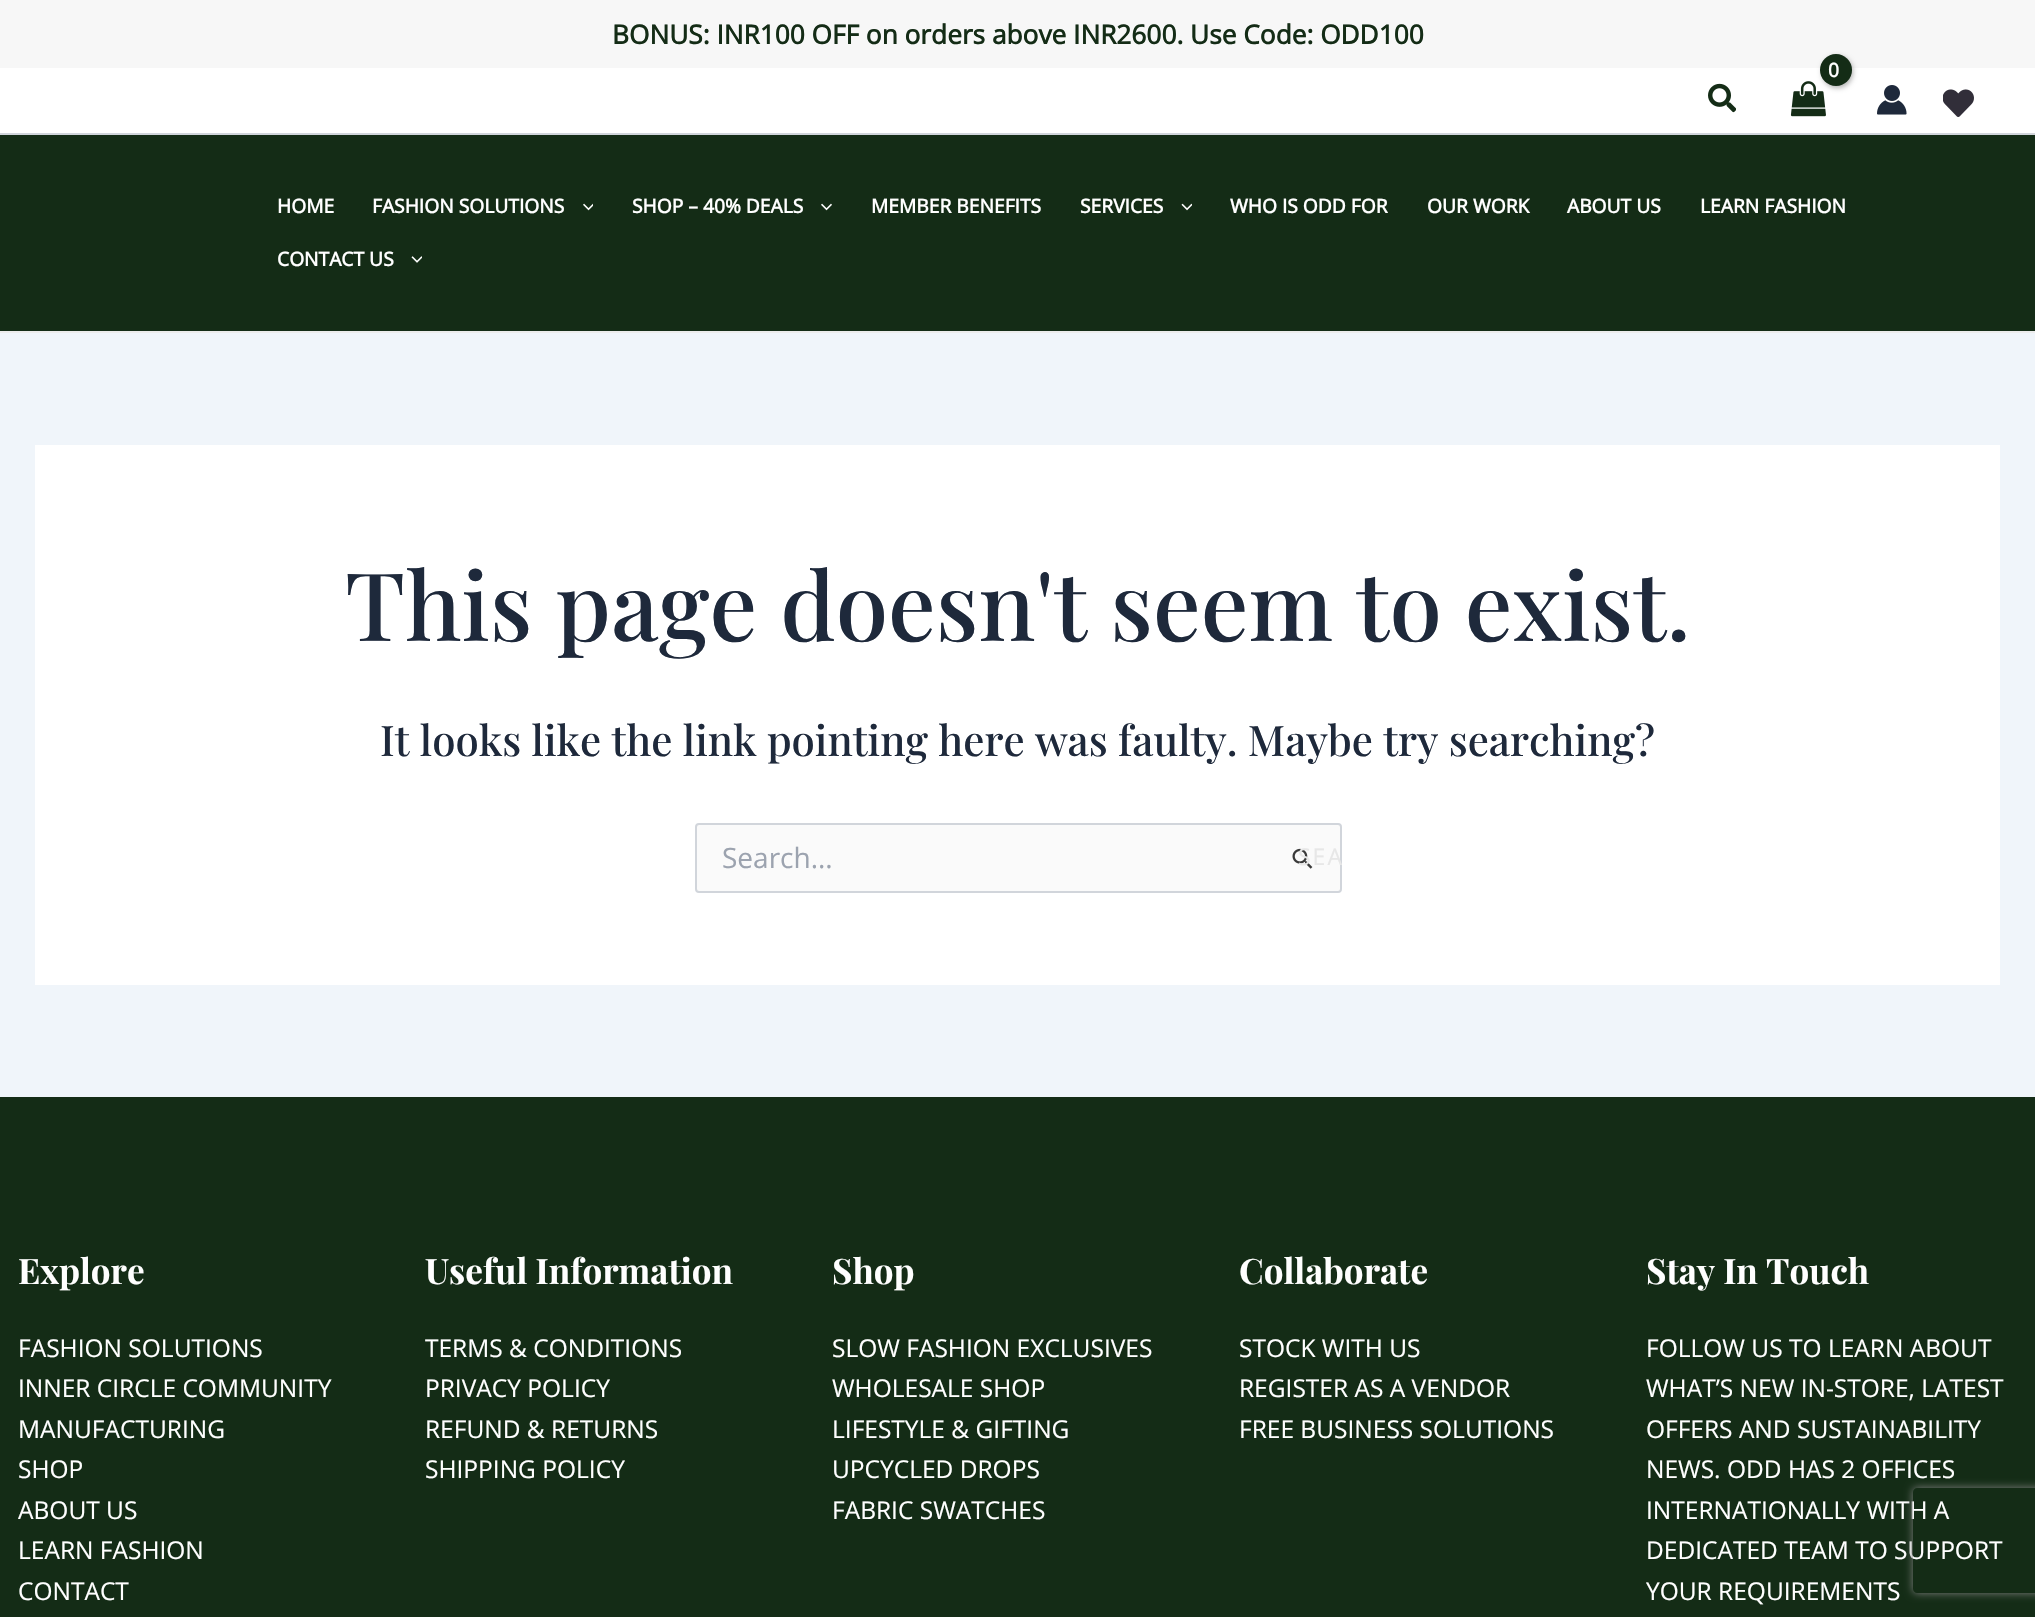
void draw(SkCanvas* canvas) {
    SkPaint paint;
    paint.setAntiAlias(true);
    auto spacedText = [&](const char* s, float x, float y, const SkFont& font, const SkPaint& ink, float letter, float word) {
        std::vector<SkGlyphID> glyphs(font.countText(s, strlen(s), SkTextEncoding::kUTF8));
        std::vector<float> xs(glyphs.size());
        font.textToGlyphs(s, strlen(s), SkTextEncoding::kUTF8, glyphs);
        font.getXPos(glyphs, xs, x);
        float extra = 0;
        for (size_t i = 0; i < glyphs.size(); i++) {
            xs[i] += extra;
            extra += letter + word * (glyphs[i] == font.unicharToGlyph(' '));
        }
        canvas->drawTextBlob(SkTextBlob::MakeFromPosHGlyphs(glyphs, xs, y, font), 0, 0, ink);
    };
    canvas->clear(0xFFF0F5FA);
    paint.setColor(0xFFF7F7F7);
    canvas->drawRect(SkRect::MakeXYWH(0, 0, 2035, 68), paint);
    SkFont font1(fontMgr->matchFamilyStyle("Open Sans", SkFontStyle::Bold()), 26.25f);
    font1.setSubpixel(true);
    paint.setColor(0xFF142C16);
    canvas->drawString("BONUS: INR100 OFF on orders above INR2600. Use Code: ODD100", 612, 44, font1, paint);
    paint.setColor(0xFFFFFFFF);
    canvas->drawRect(SkRect::MakeXYWH(0, 68, 2035, 65), paint);
    paint.setColor(0xFFD1D5DB);
    canvas->drawRect(SkRect::MakeXYWH(0, 133, 2035, 2), paint);
    canvas->drawImageRect(SkImages::DeferredFromEncodedData(SkData::MakeFromFileName("img1.png")), SkRect::MakeXYWH(1790, 81, 36, 36), SkSamplingOptions());
    paint.setColor(0x4D000000);
    paint.setMaskFilter(SkMaskFilter::MakeBlur(kNormal_SkBlurStyle, 2.5f));
    canvas->drawRoundRect(SkRect::MakeXYWH(1822, 56, 31, 32), 15.5f, 15.5f, paint);
    paint.setMaskFilter(nullptr);
    paint.setColor(0xFF142C16);
    canvas->drawCircle(1836, 70, 16, paint);
    SkFont font2(fontMgr->matchFamilyStyle("Open Sans", SkFontStyle::Bold()), 19.25f);
    font2.setSubpixel(true);
    paint.setColor(0xFFFFFFFF);
    spacedText("0", 1828, 77, font2, paint, -1, 0);
    canvas->drawImageRect(SkImages::DeferredFromEncodedData(SkData::MakeFromFileName("img2.png")), SkRect::MakeXYWH(1708, 83, 28, 30), SkSamplingOptions());
    canvas->drawImageRect(SkImages::DeferredFromEncodedData(SkData::MakeFromFileName("img3.png")), SkRect::MakeXYWH(1877, 85, 30, 30), SkSamplingOptions());
    canvas->drawImageRect(SkImages::DeferredFromEncodedData(SkData::MakeFromFileName("img4.png")), SkRect::MakeXYWH(1943, 89, 31, 28), SkSamplingOptions());
    paint.setColor(0xFF142C16);
    canvas->drawRect(SkRect::MakeXYWH(0, 135, 2035, 196), paint);
    paint.setColor(0xFFECECEC);
    canvas->drawRect(SkRect::MakeXYWH(0, 331, 2035, 2), paint);
    paint.setColor(0xFFFFFFFF);
    canvas->drawString("HOME", 277, 213, font2, paint);
    canvas->drawString("FASHION SOLUTIONS", 372, 213, font2, paint);
    canvas->drawImageRect(SkImages::DeferredFromEncodedData(SkData::MakeFromFileName("img5.png")), SkRect::MakeXYWH(583, 203, 10, 8), SkSamplingOptions());
    canvas->drawString("SHOP – 40% DEALS", 632, 213, font2, paint);
    canvas->drawImageRect(SkImages::DeferredFromEncodedData(SkData::MakeFromFileName("img6.png")), SkRect::MakeXYWH(821, 203, 11, 8), SkSamplingOptions());
    canvas->drawString("MEMBER BENEFITS", 871, 213, font2, paint);
    canvas->drawString("SERVICES", 1080, 213, font2, paint);
    canvas->drawImageRect(SkImages::DeferredFromEncodedData(SkData::MakeFromFileName("img7.png")), SkRect::MakeXYWH(1181, 203, 11, 8), SkSamplingOptions());
    canvas->drawString("WHO IS ODD FOR", 1230, 213, font2, paint);
    canvas->drawString("OUR WORK", 1427, 213, font2, paint);
    canvas->drawString("ABOUT US", 1567, 213, font2, paint);
    canvas->drawString("LEARN FASHION", 1700, 213, font2, paint);
    canvas->drawString("CONTACT US", 277, 266, font2, paint);
    canvas->drawImageRect(SkImages::DeferredFromEncodedData(SkData::MakeFromFileName("img8.png")), SkRect::MakeXYWH(411, 256, 11, 7), SkSamplingOptions());
    canvas->drawRect(SkRect::MakeXYWH(35, 445, 1965, 540), paint);
    SkFont font3(fontMgr->matchFamilyStyle("Playfair Display", SkFontStyle(500, SkFontStyle::kNormal_Width, SkFontStyle::kUpright_Slant)), 94.5f);
    font3.setSubpixel(true);
    paint.setColor(0xFF1E293B);
    canvas->drawString("This page doesn't seem to exist.", 345, 641, font3, paint);
    SkFont font4(fontMgr->matchFamilyStyle("Playfair Display", SkFontStyle(500, SkFontStyle::kNormal_Width, SkFontStyle::kUpright_Slant)), 42);
    font4.setSubpixel(true);
    canvas->drawString("It looks like the link pointing here was faulty. Maybe try searching?", 380, 756, font4, paint);
    paint.setColor(0xFFFAFAFA);
    canvas->drawRoundRect(SkRect::MakeXYWH(696, 824, 645, 68), 3, 3, paint);
    paint.setStyle(SkPaint::kStroke_Style);
    paint.setStrokeWidth(2);
    paint.setColor(0xFFD1D5DB);
    canvas->drawRoundRect(SkRect::MakeXYWH(696, 824, 645, 68), 3, 3, paint);
    SkFont font5(fontMgr->matchFamilyStyle("Open Sans", SkFontStyle::Normal()), 28);
    font5.setSubpixel(true);
    paint.setStyle(SkPaint::kFill_Style);
    paint.setColor(0xFF9CA3AF);
    canvas->drawString("Search...", 722, 868, font5, paint);
    canvas->drawImageRect(SkImages::DeferredFromEncodedData(SkData::MakeFromFileName("img9.png")), SkRect::MakeXYWH(1292, 848, 21, 21), SkSamplingOptions());
    SkFont font6(fontMgr->matchFamilyStyle("Open Sans", SkFontStyle::Normal()), 23);
    font6.setSubpixel(true);
    paint.setColor(0xFFE7E7E7);
    spacedText("SEA", 1298, 865, font6, paint, 2, 0);
    paint.setColor(0xFF142C16);
    canvas->drawRect(SkRect::MakeXYWH(0, 1097, 2035, 520), paint);
    SkFont font7(fontMgr->matchFamilyStyle("Playfair Display", SkFontStyle::Bold()), 35);
    font7.setSubpixel(true);
    paint.setColor(0xFFFFFFFF);
    canvas->drawString("Explore", 18, 1284, font7, paint);
    SkFont font8(fontMgr->matchFamilyStyle("Open Sans", SkFontStyle::Normal()), 24.5f);
    font8.setSubpixel(true);
    canvas->drawString("FASHION SOLUTIONS", 18, 1357, font8, paint);
    canvas->drawString("INNER CIRCLE COMMUNITY", 18, 1397, font8, paint);
    canvas->drawString("MANUFACTURING", 18, 1438, font8, paint);
    canvas->drawString("SHOP", 18, 1478, font8, paint);
    canvas->drawString("ABOUT US", 18, 1519, font8, paint);
    canvas->drawString("LEARN FASHION", 18, 1559, font8, paint);
    canvas->drawString("CONTACT", 18, 1600, font8, paint);
    canvas->drawString("Useful Information", 425, 1284, font7, paint);
    canvas->drawString("TERMS & CONDITIONS", 425, 1357, font8, paint);
    canvas->drawString("PRIVACY POLICY", 425, 1397, font8, paint);
    canvas->drawString("REFUND & RETURNS", 425, 1438, font8, paint);
    canvas->drawString("SHIPPING POLICY", 425, 1478, font8, paint);
    canvas->drawString("Shop", 832, 1284, font7, paint);
    canvas->drawString("SLOW FASHION EXCLUSIVES", 832, 1357, font8, paint);
    canvas->drawString("WHOLESALE SHOP", 832, 1397, font8, paint);
    canvas->drawString("LIFESTYLE & GIFTING", 832, 1438, font8, paint);
    canvas->drawString("UPCYCLED DROPS", 832, 1478, font8, paint);
    canvas->drawString("FABRIC SWATCHES", 832, 1519, font8, paint);
    canvas->drawString("Collaborate", 1239, 1284, font7, paint);
    canvas->drawString("STOCK WITH US", 1239, 1357, font8, paint);
    canvas->drawString("REGISTER AS A VENDOR", 1239, 1397, font8, paint);
    canvas->drawString("FREE BUSINESS SOLUTIONS", 1239, 1438, font8, paint);
    canvas->drawString("Stay In Touch", 1646, 1284, font7, paint);
    canvas->drawString("FOLLOW US TO LEARN ABOUT", 1646, 1357, font8, paint);
    canvas->drawString("WHAT’S NEW IN-STORE, LATEST", 1646, 1397, font8, paint);
    canvas->drawString("OFFERS AND SUSTAINABILITY", 1646, 1438, font8, paint);
    canvas->drawString("NEWS. ODD HAS 2 OFFICES", 1646, 1478, font8, paint);
    canvas->drawString("INTERNATIONALLY WITH A", 1646, 1519, font8, paint);
    canvas->drawString("DEDICATED TEAM TO SUPPORT", 1646, 1559, font8, paint);
    canvas->drawString("YOUR REQUIREMENTS", 1646, 1600, font8, paint);
    canvas->save();
    canvas->clipPath(SkPathBuilder(SkPathFillType::kEvenOdd).moveTo(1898, 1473).lineTo(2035, 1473).lineTo(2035, 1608).lineTo(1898, 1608).close().moveTo(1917, 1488).lineTo(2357, 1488).cubicTo(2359, 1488, 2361, 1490, 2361, 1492).lineTo(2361, 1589).cubicTo(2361, 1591, 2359, 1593, 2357, 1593).lineTo(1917, 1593).cubicTo(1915, 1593, 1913, 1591, 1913, 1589).lineTo(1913, 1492).cubicTo(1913, 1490, 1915, 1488, 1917, 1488).close().detach(), true);
    paint.setColor(0xFF808080);
    paint.setMaskFilter(SkMaskFilter::MakeBlur(kNormal_SkBlurStyle, 4.5f));
    canvas->drawRoundRect(SkRect::MakeXYWH(1913, 1488, 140, 105), 4, 4, paint);
    paint.setMaskFilter(nullptr);
    canvas->restore();
}
